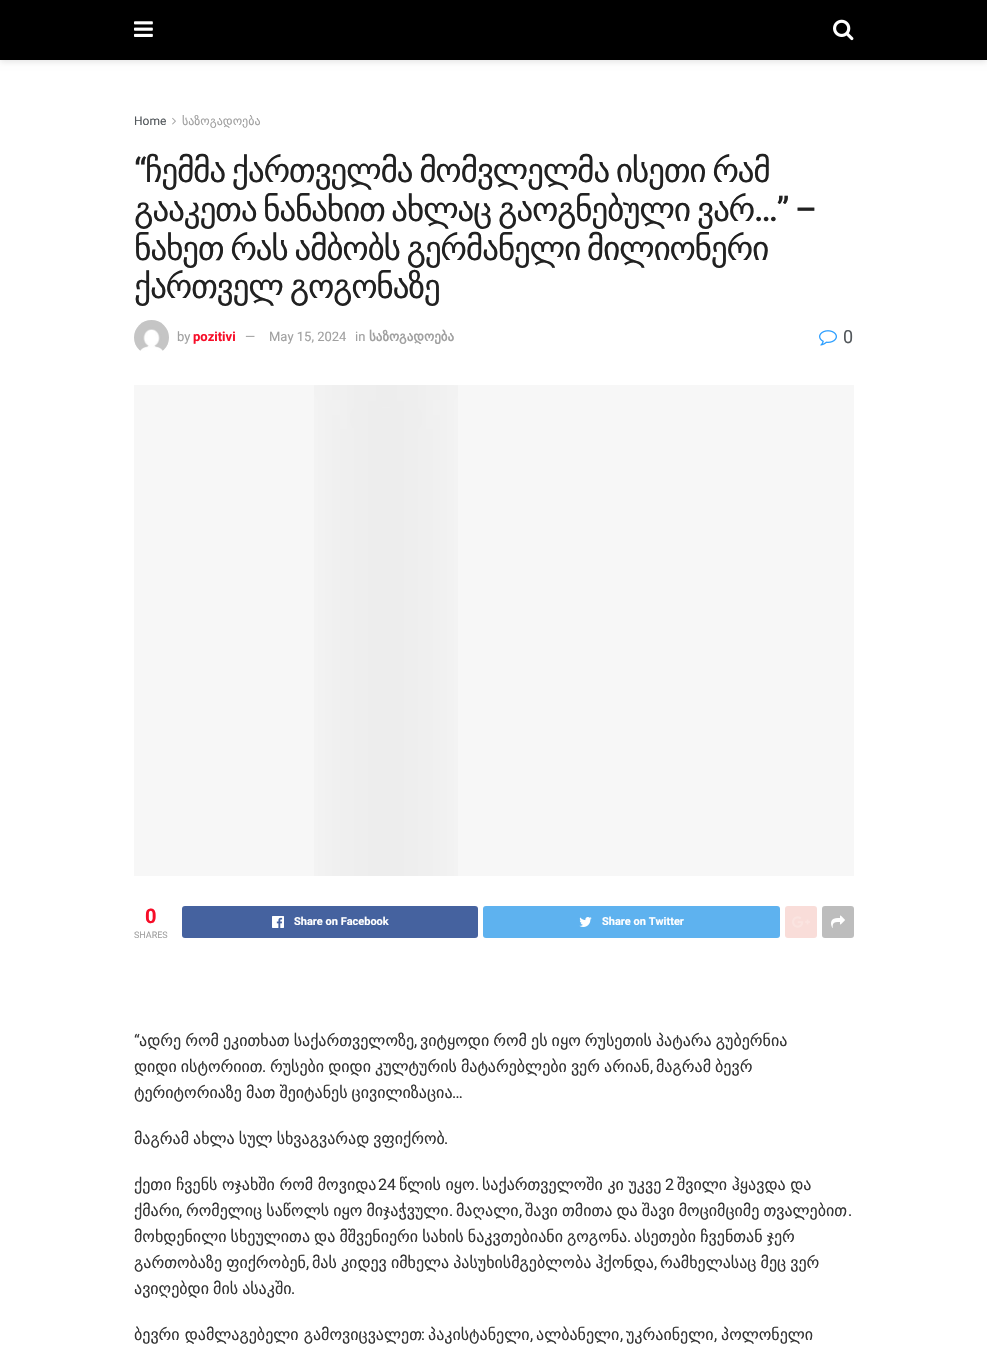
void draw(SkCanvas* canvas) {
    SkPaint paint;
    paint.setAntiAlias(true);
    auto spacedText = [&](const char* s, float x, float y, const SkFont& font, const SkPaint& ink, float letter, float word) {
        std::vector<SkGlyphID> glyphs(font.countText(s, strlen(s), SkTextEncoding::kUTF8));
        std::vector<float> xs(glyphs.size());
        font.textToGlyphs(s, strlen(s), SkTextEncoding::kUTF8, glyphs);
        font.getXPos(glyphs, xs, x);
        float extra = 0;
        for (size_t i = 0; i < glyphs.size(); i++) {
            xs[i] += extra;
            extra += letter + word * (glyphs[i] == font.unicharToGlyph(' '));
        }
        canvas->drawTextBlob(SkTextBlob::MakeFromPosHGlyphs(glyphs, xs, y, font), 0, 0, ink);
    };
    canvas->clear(0xFFFFFFFF);
    paint.setColor(0x1A000000);
    paint.setMaskFilter(SkMaskFilter::MakeBlur(kNormal_SkBlurStyle, 3));
    canvas->drawRect(SkRect::MakeXYWH(0, 2, 987, 60), paint);
    paint.setMaskFilter(nullptr);
    paint.setColor(0xFF000000);
    canvas->drawRect(SkRect::MakeXYWH(0, 0, 987, 60), paint);
    canvas->drawImageRect(SkImages::DeferredFromEncodedData(SkData::MakeFromFileName("img1.png")), SkRect::MakeXYWH(134, 21, 19, 16), SkSamplingOptions());
    canvas->drawImageRect(SkImages::DeferredFromEncodedData(SkData::MakeFromFileName("img2.png")), SkRect::MakeXYWH(833, 19, 21, 22), SkSamplingOptions());
    SkFont font1(fontMgr->matchFamilyStyle("Roboto", SkFontStyle::Normal()), 12);
    font1.setSubpixel(true);
    paint.setColor(0xFF53585C);
    canvas->drawString("Home", 134, 125, font1, paint);
    canvas->drawImageRect(SkImages::DeferredFromEncodedData(SkData::MakeFromFileName("img3.png")), SkRect::MakeXYWH(172, 117, 4, 8), SkSamplingOptions());
    SkFont font2(fontMgr->matchFamilyStyle("DejaVu Sans", SkFontStyle::Normal()), 12);
    font2.setSubpixel(true);
    paint.setColor(0xFFA0A0A0);
    canvas->drawString("საზოგადოება", 182, 125, font2, paint);
    SkFont font3(fontMgr->matchFamilyStyle("Roboto", SkFontStyle(500, SkFontStyle::kNormal_Width, SkFontStyle::kUpright_Slant)), 33.6f);
    font3.setSubpixel(true);
    paint.setColor(0xFF212121);
    spacedText("“", 134, 182, font3, paint, -1.35f, 0);
    SkFont font4(fontMgr->matchFamilyStyle("DejaVu Sans", SkFontStyle::Normal()), 33.6f);
    font4.setSubpixel(true);
    spacedText("ჩემმა ქართველმა მომვლელმა ისეთი რამ", 145, 182, font4, paint, -1.35f, -2.5f);
    spacedText("გააკეთა", 134, 221, font4, paint, -1.35f, 0);
    spacedText("ნანახით", 263, 221, font4, paint, -1.35f, 0);
    spacedText("ახლაც", 391, 221, font4, paint, -1.35f, 0);
    spacedText("გაოგნებული", 498, 221, font4, paint, -1.35f, 0);
    spacedText("ვარ", 697, 221, font4, paint, -1.35f, 0);
    spacedText("…” –", 754, 221, font3, paint, -1.35f, 0);
    spacedText("ნახეთ რას ამბობს გერმანელი მილიონერი", 134, 260, font4, paint, -1.35f, -2.5f);
    spacedText("ქართველ გოგონაზე", 134, 298, font4, paint, -1.35f, -2);
    canvas->drawImageRect(SkImages::DeferredFromEncodedData(SkData::MakeFromFileName("img4.png")), SkRect::MakeXYWH(134, 320, 35, 31), SkSamplingOptions());
    SkFont font5(fontMgr->matchFamilyStyle("Roboto", SkFontStyle::Normal()), 13);
    font5.setSubpixel(true);
    paint.setColor(0xFFA0A0A0);
    canvas->drawString("by", 177, 341, font5, paint);
    SkFont font6(fontMgr->matchFamilyStyle("Roboto", SkFontStyle::Bold()), 13);
    font6.setSubpixel(true);
    paint.setColor(0xFFF70D28);
    canvas->drawString("pozitivi", 193, 341, font6, paint);
    paint.setColor(0xFFA0A0A0);
    canvas->drawString("—", 245, 341, font5, paint);
    canvas->drawString("May 15, 2024", 269, 341, font5, paint);
    canvas->drawString("in", 355, 341, font5, paint);
    SkFont font7(fontMgr->matchFamilyStyle("DejaVu Sans", SkFontStyle::Bold()), 13);
    font7.setSubpixel(true);
    canvas->drawString("საზოგადოება", 369, 341, font7, paint);
    canvas->drawImageRect(SkImages::DeferredFromEncodedData(SkData::MakeFromFileName("img5.png")), SkRect::MakeXYWH(819, 330, 18, 16), SkSamplingOptions());
    SkFont font8(fontMgr->matchFamilyStyle("Roboto", SkFontStyle::Normal()), 18);
    font8.setSubpixel(true);
    paint.setColor(0xFF53585C);
    canvas->drawString("0", 843, 343, font8, paint);
    paint.setColor(0xFFF7F7F7);
    canvas->drawRect(SkRect::MakeXYWH(134, 385, 720, 491), paint);
    canvas->drawImageRect(SkImages::DeferredFromEncodedData(SkData::MakeFromFileName("img6.png")), SkRect::MakeXYWH(314, 385, 144, 491), SkSamplingOptions());
    SkFont font9(fontMgr->matchFamilyStyle("Roboto", SkFontStyle::Bold()), 20);
    font9.setSubpixel(true);
    paint.setColor(0xFFF70D28);
    canvas->drawString("0", 145, 923, font9, paint);
    SkFont font10(fontMgr->matchFamilyStyle("Roboto", SkFontStyle::Normal()), 9);
    font10.setSubpixel(true);
    paint.setColor(0xFFA0A0A0);
    canvas->drawString("SHARES", 134, 938, font10, paint);
    paint.setColor(0xFF45629F);
    canvas->drawRoundRect(SkRect::MakeXYWH(182, 906, 296, 32), 3, 3, paint);
    canvas->drawImageRect(SkImages::DeferredFromEncodedData(SkData::MakeFromFileName("img7.png")), SkRect::MakeXYWH(272, 916, 12, 12), SkSamplingOptions());
    SkFont font11(fontMgr->matchFamilyStyle("Roboto", SkFontStyle::Bold()), 11);
    font11.setSubpixel(true);
    paint.setColor(0xFFFFFFFF);
    canvas->drawString("Share on Facebook", 294, 925, font11, paint);
    paint.setColor(0xFF5EB2EF);
    canvas->drawRoundRect(SkRect::MakeXYWH(483, 906, 297, 32), 3, 3, paint);
    canvas->drawImageRect(SkImages::DeferredFromEncodedData(SkData::MakeFromFileName("img8.png")), SkRect::MakeXYWH(579, 917, 13, 10), SkSamplingOptions());
    paint.setColor(0xFFFFFFFF);
    canvas->drawString("Share on Twitter", 602, 925, font11, paint);
    paint.setColor(0xFFF9DDD9);
    canvas->drawRoundRect(SkRect::MakeXYWH(785, 906, 32, 32), 3, 3, paint);
    canvas->drawImageRect(SkImages::DeferredFromEncodedData(SkData::MakeFromFileName("img9.png")), SkRect::MakeXYWH(792, 916, 18, 12), SkSamplingOptions());
    paint.setColor(0xFFBDBDBD);
    canvas->drawRoundRect(SkRect::MakeXYWH(822, 906, 32, 32), 3, 3, paint);
    canvas->drawImageRect(SkImages::DeferredFromEncodedData(SkData::MakeFromFileName("img10.png")), SkRect::MakeXYWH(831, 915, 14, 13), SkSamplingOptions());
    SkFont font12(fontMgr->matchFamilyStyle("Roboto", SkFontStyle::Normal()), 16);
    font12.setSubpixel(true);
    paint.setColor(0xFF333333);
    canvas->drawString("“", 134, 1046, font12, paint);
    SkFont font13(fontMgr->matchFamilyStyle("DejaVu Sans", SkFontStyle::Normal()), 16);
    font13.setSubpixel(true);
    spacedText("ადრე რომ ეკითხათ საქართველოზე", 139, 1046, font13, paint, 0, -1);
    spacedText("ვიტყოდი რომ ეს იყო რუსეთის პატარა გუბერნია", 420, 1046, font13, paint, 0, -1);
    canvas->drawString(",", 414, 1046, font12, paint);
    spacedText("დიდი ისტორიით", 134, 1072, font13, paint, 0, -1);
    canvas->drawString(".", 262, 1072, font12, paint);
    spacedText("რუსები დიდი კულტურის მატარებლები ვერ არიან", 270, 1072, font13, paint, 0, -1);
    canvas->drawString(",", 650, 1072, font12, paint);
    spacedText("მაგრამ ბევრ", 656, 1072, font13, paint, 0, -1);
    spacedText("ტერიტორიაზე მათ შეიტანეს ცივილიზაცია", 134, 1098, font13, paint, 0, -1);
    canvas->drawString("…", 452, 1098, font12, paint);
    spacedText("მაგრამ ახლა სულ სხვაგვარად ვფიქრობ", 134, 1144, font13, paint, 0, -1);
    canvas->drawString(".", 444, 1144, font12, paint);
    spacedText("ქეთი ჩვენს ოჯახში რომ მოვიდა", 134, 1190, font13, paint, 0, -0.5f);
    canvas->drawString("24", 378, 1190, font12, paint);
    spacedText("წლის იყო", 399, 1190, font13, paint, 0, -0.5f);
    canvas->drawString(".", 475, 1190, font12, paint);
    spacedText("საქართველოში კი უკვე", 482, 1190, font13, paint, 0, -0.5f);
    canvas->drawString("2", 665, 1190, font12, paint);
    spacedText("შვილი ჰყავდა და", 677, 1190, font13, paint, 0, -0.5f);
    canvas->drawString("ქმარი", 134, 1216, font13, paint);
    canvas->drawString(",", 179, 1216, font12, paint);
    spacedText("რომელიც საწოლს იყო მიჯაჭვული", 186, 1216, font13, paint, 0, -1);
    canvas->drawString(".", 449, 1216, font12, paint);
    canvas->drawString("მაღალი", 456, 1216, font13, paint);
    canvas->drawString(",", 519, 1216, font12, paint);
    spacedText("შავი თმითა და შავი მოციმციმე თვალებით", 525, 1216, font13, paint, 0, -1);
    canvas->drawString(".", 848, 1216, font12, paint);
    spacedText("მოხდენილი სხეულითა და მშვენიერი სახის ნაკვთებიანი გოგონა", 134, 1242, font13, paint, 0, -1);
    canvas->drawString(".", 627, 1242, font12, paint);
    spacedText("ასეთები ჩვენთან ჯერ", 634, 1242, font13, paint, 0, -1);
    spacedText("გართობაზე ფიქრობენ", 134, 1268, font13, paint, 0, -1);
    canvas->drawString(",", 306, 1268, font12, paint);
    spacedText("მას კიდევ იმხელა პასუხისმგებლობა ჰქონდა", 312, 1268, font13, paint, 0, -1);
    canvas->drawString(",", 654, 1268, font12, paint);
    spacedText("რამხელასაც მეც ვერ", 660, 1268, font13, paint, 0, -1);
    spacedText("ავიღებდი მის ასაკში", 134, 1294, font13, paint, 0, -1);
    canvas->drawString(".", 291, 1294, font12, paint);
    canvas->drawString("ბევრი დამლაგებელი გამოვიცვალეთ", 134, 1340, font13, paint);
    canvas->drawString(":", 421, 1340, font12, paint);
    canvas->drawString("პაკისტანელი", 428, 1340, font13, paint);
    canvas->drawString(",", 530, 1340, font12, paint);
    canvas->drawString("ალბანელი", 536, 1340, font13, paint);
    canvas->drawString(",", 620, 1340, font12, paint);
    canvas->drawString("უკრაინელი", 626, 1340, font13, paint);
    canvas->drawString(",", 714, 1340, font12, paint);
    canvas->drawString("პოლონელი", 721, 1340, font13, paint);
}
